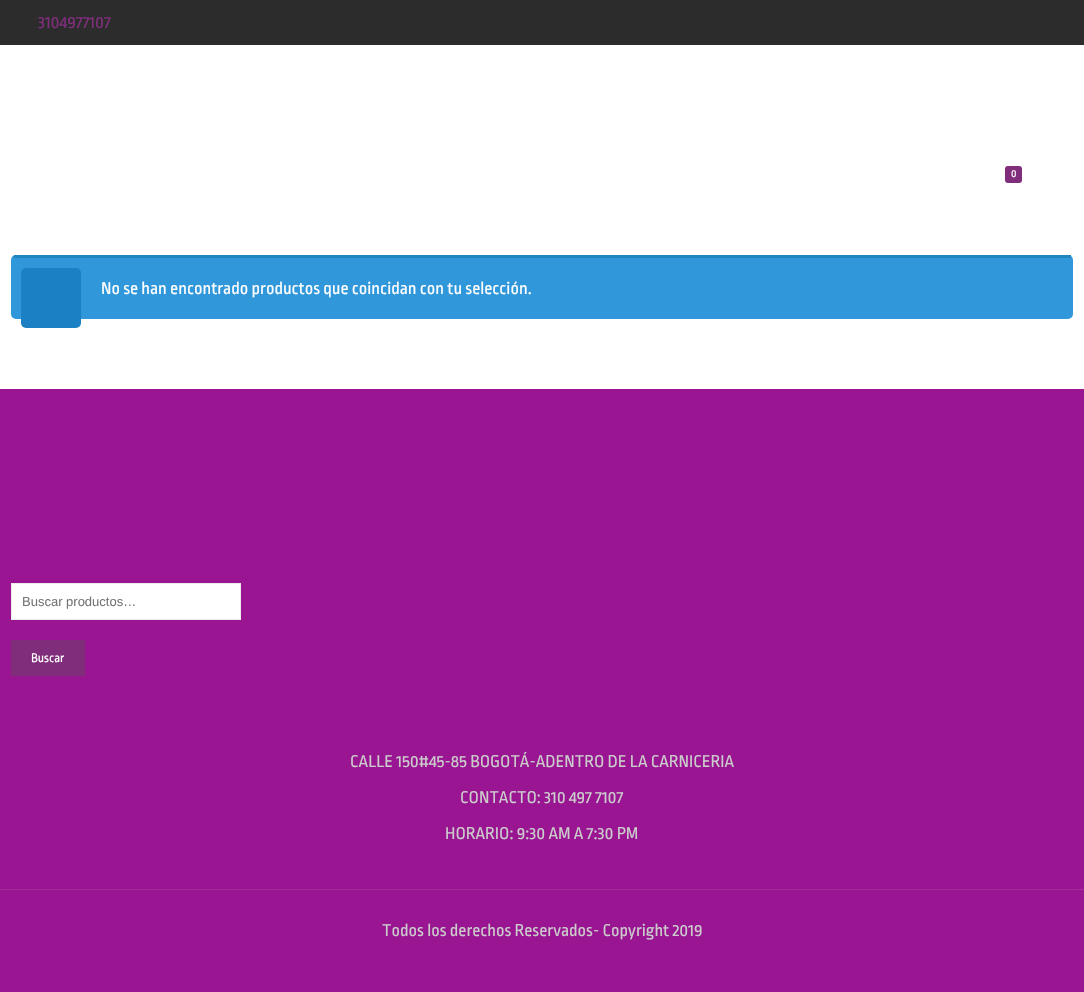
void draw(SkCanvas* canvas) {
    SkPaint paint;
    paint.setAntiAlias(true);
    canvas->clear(0xFF991592);
    paint.setColor(0xFF2C2C2C);
    canvas->drawRect(SkRect::MakeXYWH(0, 0, 1084, 45), paint);
    SkFont font1(fontMgr->matchFamilyStyle("Ropa Sans", SkFontStyle::Normal()), 18);
    font1.setSubpixel(true);
    paint.setColor(0xFF802D7C);
    canvas->drawString("3104977107", 38, 28, font1, paint);
    paint.setColor(0xFFFFFFFF);
    canvas->drawRect(SkRect::MakeXYWH(0, 45, 1084, 344), paint);
    paint.setColor(0xFF802D7C);
    canvas->drawRoundRect(SkRect::MakeXYWH(1005, 166, 17, 17), 3, 3, paint);
    SkFont font2(fontMgr->matchFamilyStyle("Ropa Sans", SkFontStyle::Normal()), 11);
    font2.setSubpixel(true);
    paint.setColor(0xFFFFFFFF);
    canvas->drawString("0", 1011, 177, font2, paint);
    paint.setColor(0xFF3097DB);
    canvas->drawRoundRect(SkRect::MakeXYWH(11, 255, 1062, 64), 5, 5, paint);
    paint.setColor(0xFF1E85BE);
    canvas->drawRect(SkRect::MakeXYWH(14, 255, 1057, 3), paint);
    paint.setColor(0xFF1C81C4);
    canvas->drawRoundRect(SkRect::MakeXYWH(21, 268, 60, 60), 5, 5, paint);
    paint.setColor(0xFFFFFFFF);
    canvas->drawString("No se han encontrado productos que coincidan con tu selección.", 101, 294, font1, paint);
    canvas->drawRect(SkRect::MakeXYWH(11.5f, 583.5f, 229, 36), paint);
    paint.setStyle(SkPaint::kStroke_Style);
    paint.setStrokeWidth(1);
    paint.setColor(0xFFEBEBEB);
    canvas->drawRect(SkRect::MakeXYWH(11.5f, 583.5f, 229, 36), paint);
    SkFont font3(fontMgr->matchFamilyStyle("Liberation Sans", SkFontStyle::Normal()), 13);
    font3.setSubpixel(true);
    paint.setStyle(SkPaint::kFill_Style);
    paint.setColor(0xFF757575);
    canvas->drawString("Buscar productos…", 22, 606, font3, paint);
    paint.setColor(0xFF802D7C);
    canvas->drawRect(SkRect::MakeXYWH(11, 640, 74, 36), paint);
    SkFont font4(fontMgr->matchFamilyStyle("Ropa Sans", SkFontStyle::Normal()), 13);
    font4.setSubpixel(true);
    paint.setColor(0xFFFFFFFF);
    canvas->drawString("Buscar", 31, 662, font4, paint);
    paint.setColor(0xFFCCCCCC);
    canvas->drawString("CALLE 150#45-85 BOGOTÁ-ADENTRO DE LA CARNICERIA", 350, 767, font1, paint);
    canvas->drawString("CONTACTO: 310 497 7107", 460, 803, font1, paint);
    canvas->drawString("HORARIO: 9:30 AM A 7:30 PM", 445, 839, font1, paint);
    paint.setColor(0xFFA32C9D);
    canvas->drawRect(SkRect::MakeXYWH(0, 889, 1084, 1), paint);
    paint.setColor(0xFFCCCCCC);
    canvas->drawString("Todos los derechos Reservados- Copyright 2019", 382, 936, font1, paint);
}
